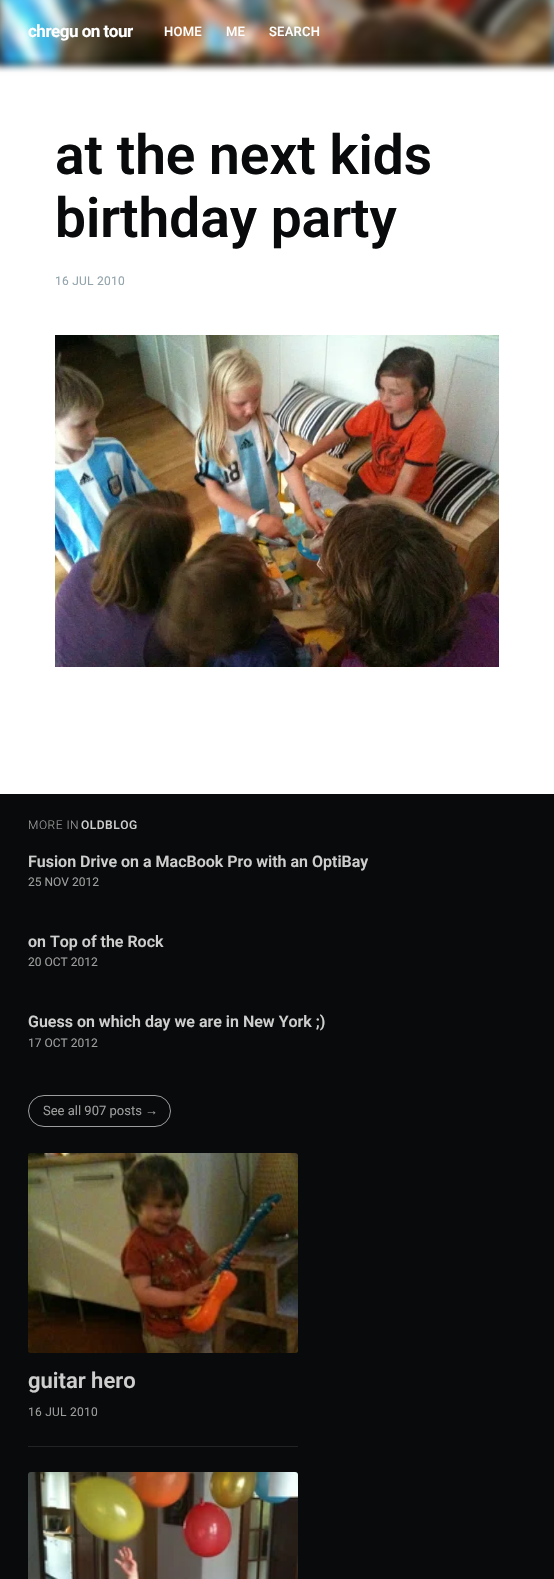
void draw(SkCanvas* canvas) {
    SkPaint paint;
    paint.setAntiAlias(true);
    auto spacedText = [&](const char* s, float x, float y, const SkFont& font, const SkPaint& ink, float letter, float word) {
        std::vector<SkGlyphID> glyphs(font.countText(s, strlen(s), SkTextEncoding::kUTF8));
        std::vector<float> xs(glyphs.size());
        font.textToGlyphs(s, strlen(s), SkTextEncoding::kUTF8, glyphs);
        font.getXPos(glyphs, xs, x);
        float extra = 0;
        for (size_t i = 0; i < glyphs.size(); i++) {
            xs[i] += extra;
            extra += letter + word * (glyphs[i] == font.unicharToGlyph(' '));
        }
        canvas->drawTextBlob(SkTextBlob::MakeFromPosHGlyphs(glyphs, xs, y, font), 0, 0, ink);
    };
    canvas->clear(0xFFFFFFFF);
    paint.setColor(0xFF000000);
    paint.setMaskFilter(SkMaskFilter::MakeBlur(kNormal_SkBlurStyle, 4));
    canvas->drawRect(SkRect::MakeXYWH(-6, -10, 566, 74), paint);
    paint.setMaskFilter(nullptr);
    canvas->drawImageRect(SkImages::DeferredFromEncodedData(SkData::MakeFromFileName("img1.png")), SkRect::MakeXYWH(0, 0, 554, 72), SkSamplingOptions());
    SkFont font1(fontMgr->matchFamilyStyle("Roboto", SkFontStyle::Bold()), 17);
    font1.setSubpixel(true);
    paint.setColor(0xFFFFFFFF);
    spacedText("chregu on tour", 28, 37, font1, paint, -0.5f, 0);
    SkFont font2(fontMgr->matchFamilyStyle("Roboto", SkFontStyle(500, SkFontStyle::kNormal_Width, SkFontStyle::kUpright_Slant)), 13);
    font2.setSubpixel(true);
    spacedText("HOME", 164, 36, font2, paint, 0.25f, 0);
    spacedText("ME", 226, 36, font2, paint, 0.25f, 0);
    spacedText("SEARCH", 269, 36, font2, paint, 0.25f, 0);
    SkFont font3(fontMgr->matchFamilyStyle("Roboto", SkFontStyle(600, SkFontStyle::kNormal_Width, SkFontStyle::kUpright_Slant)), 55);
    font3.setSubpixel(true);
    paint.setColor(0xFF090A0B);
    canvas->drawString("at the next kids", 55, 174, font3, paint);
    canvas->drawString("birthday party", 55, 237, font3, paint);
    SkFont font4(fontMgr->matchFamilyStyle("Roboto", SkFontStyle::Normal()), 12);
    font4.setSubpixel(true);
    paint.setColor(0xFF92A3AB);
    spacedText("16 JUL 2010", 55, 285, font4, paint, 0.25f, 0);
    canvas->drawImageRect(SkImages::DeferredFromEncodedData(SkData::MakeFromFileName("img2.png")), SkRect::MakeXYWH(55, 335, 444, 332), SkSamplingOptions());
    paint.setColor(0xFF090A0B);
    canvas->drawRect(SkRect::MakeXYWH(0, 794, 554, 785), paint);
    SkFont font5(fontMgr->matchFamilyStyle("Roboto", SkFontStyle(300, SkFontStyle::kNormal_Width, SkFontStyle::kUpright_Slant)), 12);
    font5.setSubpixel(true);
    paint.setColor(0xFF9D9D9D);
    spacedText("MORE IN", 28, 829, font5, paint, 0.5f, 0);
    SkFont font6(fontMgr->matchFamilyStyle("Roboto", SkFontStyle(500, SkFontStyle::kNormal_Width, SkFontStyle::kUpright_Slant)), 12);
    font6.setSubpixel(true);
    paint.setColor(0xFFCECECE);
    spacedText("OLDBLOG", 81, 829, font6, paint, 0.5f, 0);
    SkFont font7(fontMgr->matchFamilyStyle("Roboto", SkFontStyle(600, SkFontStyle::kNormal_Width, SkFontStyle::kUpright_Slant)), 16);
    font7.setSubpixel(true);
    canvas->drawString("Fusion Drive on a MacBook Pro with an OptiBay", 28, 867, font7, paint);
    paint.setColor(0xFF9D9D9D);
    canvas->drawString("25 NOV 2012", 28, 886, font4, paint);
    paint.setColor(0xFFCECECE);
    canvas->drawString("on Top of the Rock", 28, 947, font7, paint);
    paint.setColor(0xFF9D9D9D);
    canvas->drawString("20 OCT 2012", 28, 966, font4, paint);
    paint.setColor(0xFFCECECE);
    canvas->drawString("Guess on which day we are in New York ;)", 28, 1027, font7, paint);
    paint.setColor(0xFF9D9D9D);
    canvas->drawString("17 OCT 2012", 28, 1047, font4, paint);
    paint.setStyle(SkPaint::kStroke_Style);
    paint.setStrokeWidth(1);
    canvas->drawRoundRect(SkRect::MakeXYWH(28.5f, 1095.5f, 142, 31), 15.5f, 15.5f, paint);
    SkFont font8(fontMgr->matchFamilyStyle("Roboto", SkFontStyle::Normal()), 13);
    font8.setSubpixel(true);
    paint.setStyle(SkPaint::kFill_Style);
    canvas->drawString("See all 907 posts", 43, 1115, font8, paint);
    SkFont font9(fontMgr->matchFamilyStyle("Liberation Sans", SkFontStyle::Normal()), 13);
    font9.setSubpixel(true);
    canvas->drawString("→", 145, 1115, font9, paint);
    paint.setColor(0xFF222323);
    canvas->drawRect(SkRect::MakeXYWH(28, 1446, 270, 1), paint);
    canvas->drawImageRect(SkImages::DeferredFromEncodedData(SkData::MakeFromFileName("img3.png")), SkRect::MakeXYWH(28, 1153, 270, 200), SkSamplingOptions());
    SkFont font10(fontMgr->matchFamilyStyle("Roboto", SkFontStyle(600, SkFontStyle::kNormal_Width, SkFontStyle::kUpright_Slant)), 22);
    font10.setSubpixel(true);
    paint.setColor(0xFFCECECE);
    canvas->drawString("guitar hero", 28, 1388, font10, paint);
    paint.setColor(0xFF9D9D9D);
    spacedText("16 JUL 2010", 28, 1416, font4, paint, 0.25f, 0);
    canvas->drawImageRect(SkImages::DeferredFromEncodedData(SkData::MakeFromFileName("img4.png")), SkRect::MakeXYWH(28, 1472, 270, 107), SkSamplingOptions());
}
